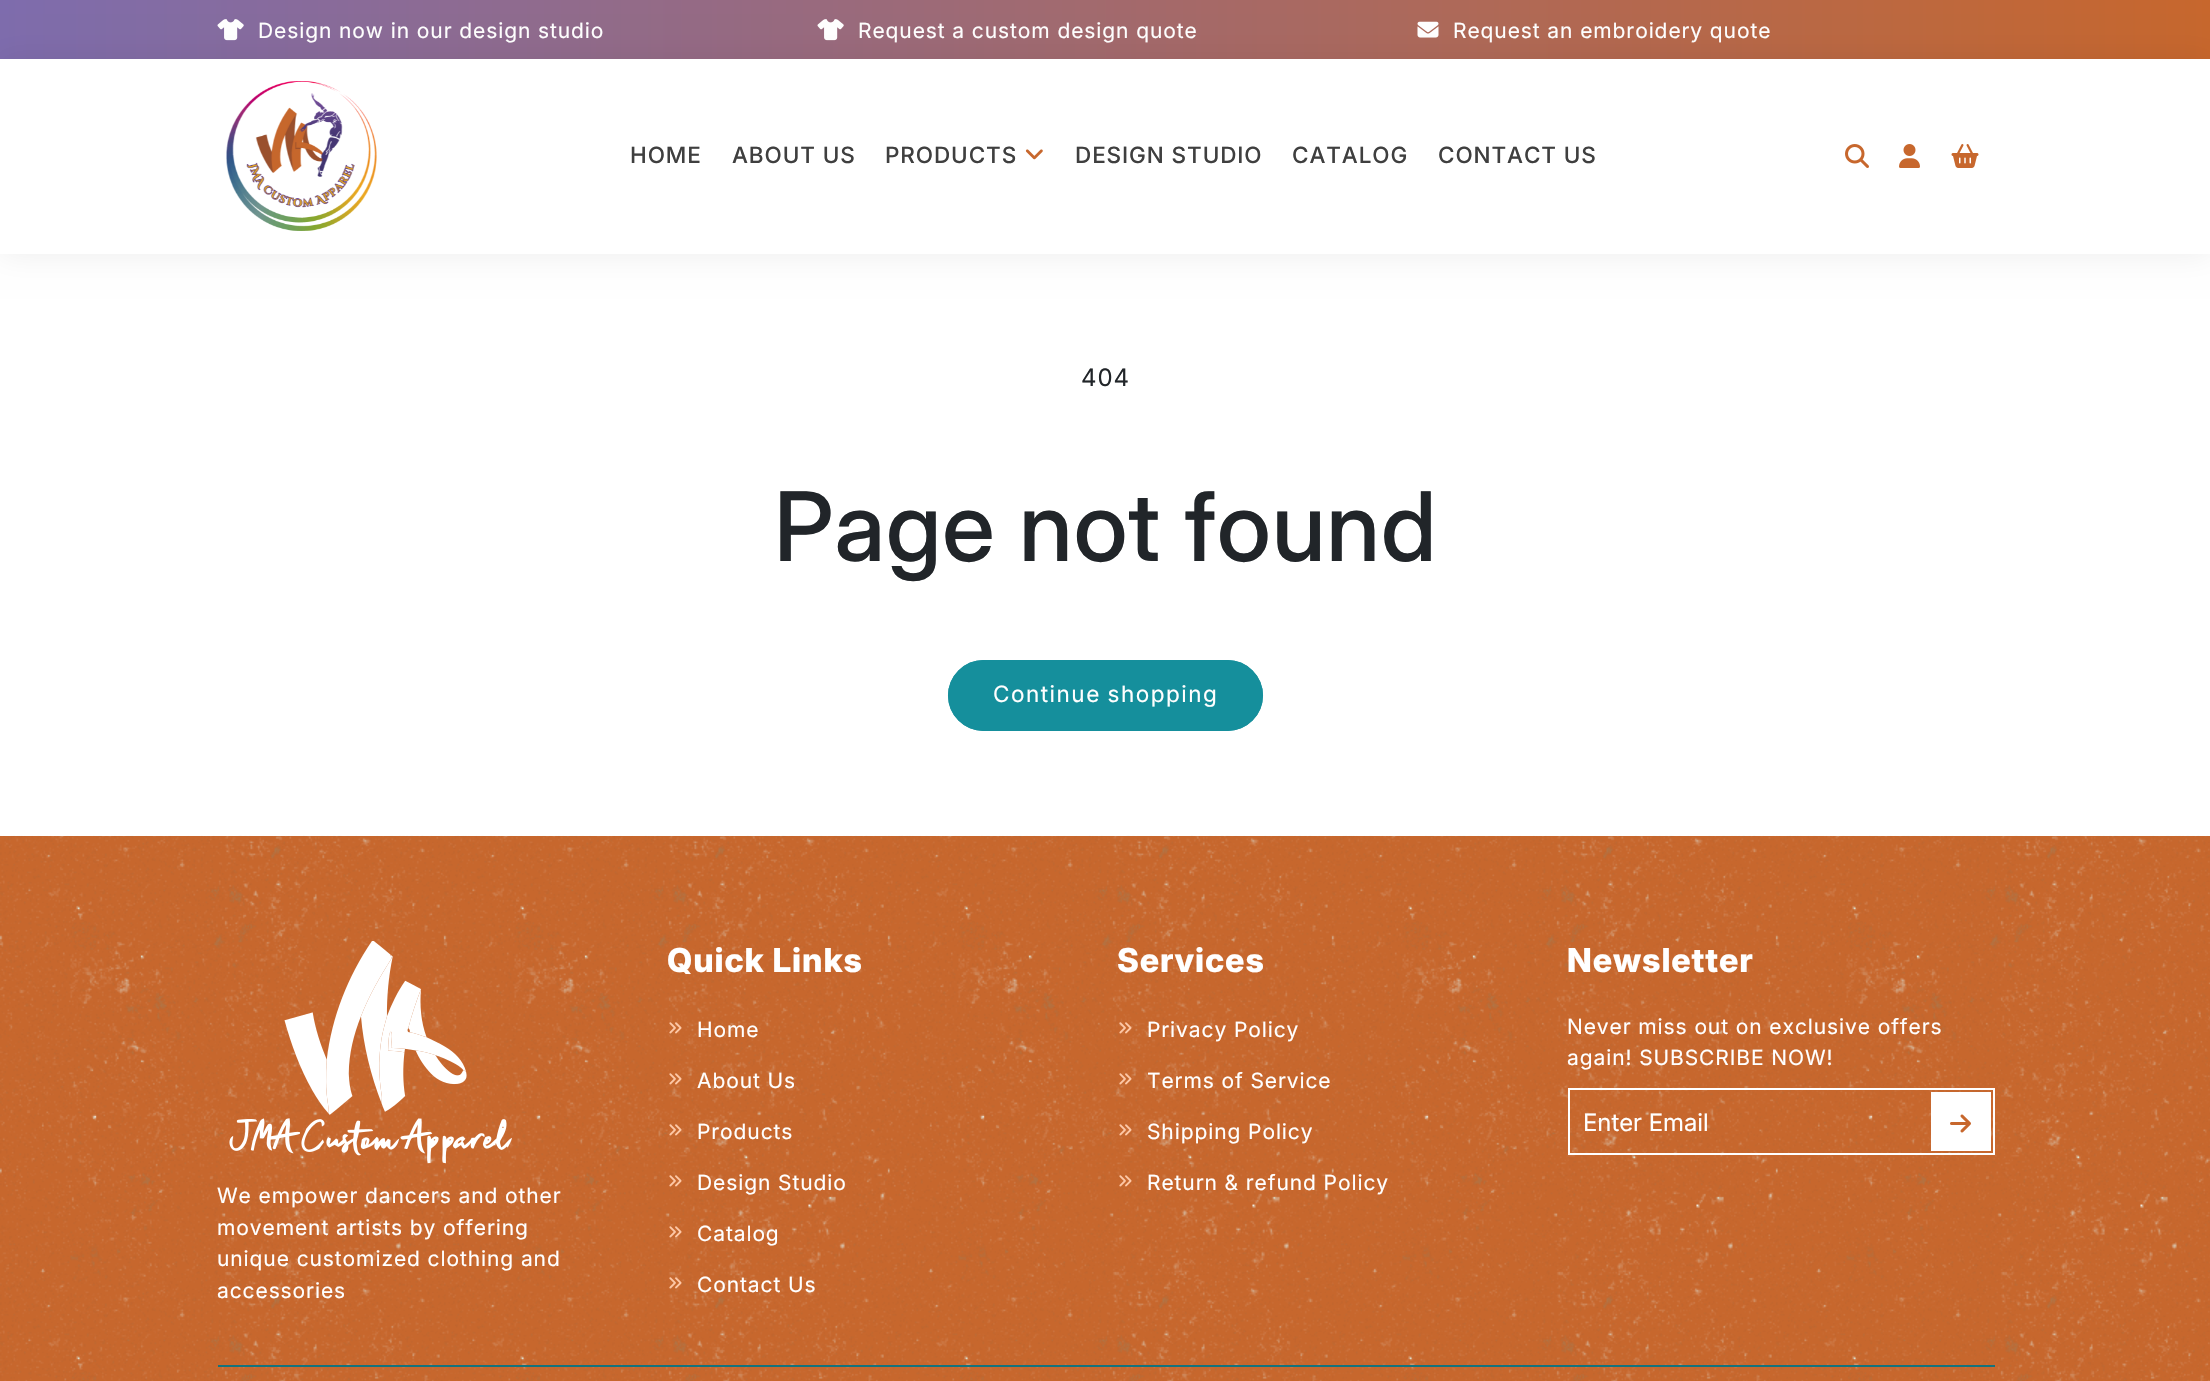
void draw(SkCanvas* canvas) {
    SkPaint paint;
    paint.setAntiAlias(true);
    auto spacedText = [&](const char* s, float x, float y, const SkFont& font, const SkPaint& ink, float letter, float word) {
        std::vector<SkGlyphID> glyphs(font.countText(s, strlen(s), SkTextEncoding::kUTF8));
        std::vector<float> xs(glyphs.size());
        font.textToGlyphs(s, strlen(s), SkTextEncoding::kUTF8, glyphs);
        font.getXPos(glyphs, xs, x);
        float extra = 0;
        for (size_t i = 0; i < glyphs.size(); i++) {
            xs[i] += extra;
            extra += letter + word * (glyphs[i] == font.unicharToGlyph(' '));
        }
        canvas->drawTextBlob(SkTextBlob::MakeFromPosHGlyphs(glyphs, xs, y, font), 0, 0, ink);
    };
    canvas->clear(0xFFFFFFFF);
    {
        const SkColor colors[] = {0xFF7E6CAD, 0xFFC7672D};
        const float stops[] = {0, 1};
        const SkPoint ends[] = {{0, 29}, {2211, 29}};
        paint.setShader(SkGradientShader::MakeLinear(ends, colors, stops, 2, SkTileMode::kClamp));
        paint.setAlpha(255);
    }
    canvas->drawRect(SkRect::MakeXYWH(0, 0, 2210, 59), paint);
    canvas->drawImageRect(SkImages::DeferredFromEncodedData(SkData::MakeFromFileName("img1.png")), SkRect::MakeXYWH(217, 19, 27, 22), SkSamplingOptions());
    SkFont font1(fontMgr->matchFamilyStyle("Inter", SkFontStyle::Normal()), 21);
    font1.setSubpixel(true);
    paint.setShader(nullptr);
    paint.setColor(0xFFFFFFFF);
    spacedText("Design now in our design studio", 258, 38, font1, paint, 0.9f, 0);
    canvas->drawImageRect(SkImages::DeferredFromEncodedData(SkData::MakeFromFileName("img2.png")), SkRect::MakeXYWH(817, 19, 27, 22), SkSamplingOptions());
    spacedText("Request a custom design quote", 858, 38, font1, paint, 0.9f, 0);
    canvas->drawImageRect(SkImages::DeferredFromEncodedData(SkData::MakeFromFileName("img3.png")), SkRect::MakeXYWH(1417, 21, 22, 17), SkSamplingOptions());
    spacedText("Request an embroidery quote", 1453, 38, font1, paint, 0.9f, 0);
    paint.setColor(0x12000000);
    paint.setMaskFilter(SkMaskFilter::MakeBlur(kNormal_SkBlurStyle, 15));
    canvas->drawRect(SkRect::MakeXYWH(0, 59, 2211, 195), paint);
    paint.setMaskFilter(nullptr);
    paint.setColor(0xFFFFFFFF);
    canvas->drawRect(SkRect::MakeXYWH(0, 59, 2210, 195), paint);
    canvas->drawImageRect(SkImages::DeferredFromEncodedData(SkData::MakeFromFileName("img4.png")), SkRect::MakeXYWH(226, 81, 151, 150), SkSamplingOptions());
    SkFont font2(fontMgr->matchFamilyStyle("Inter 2", SkFontStyle(500, SkFontStyle::kNormal_Width, SkFontStyle::kUpright_Slant)), 22.5f);
    font2.setSubpixel(true);
    paint.setColor(0xFF3F3F3F);
    spacedText("HOME", 630, 163, font2, paint, 0.9f, 0);
    spacedText("ABOUT US", 732, 163, font2, paint, 0.9f, 0);
    spacedText("PRODUCTS", 885, 163, font2, paint, 0.9f, 0);
    canvas->drawImageRect(SkImages::DeferredFromEncodedData(SkData::MakeFromFileName("img5.png")), SkRect::MakeXYWH(1025, 149, 18, 11), SkSamplingOptions());
    spacedText("DESIGN STUDIO", 1075, 163, font2, paint, 0.9f, 0);
    spacedText("CATALOG", 1292, 163, font2, paint, 0.9f, 0);
    spacedText("CONTACT US", 1438, 163, font2, paint, 0.9f, 0);
    canvas->drawImageRect(SkImages::DeferredFromEncodedData(SkData::MakeFromFileName("img6.png")), SkRect::MakeXYWH(1845, 144, 24, 24), SkSamplingOptions());
    canvas->drawImageRect(SkImages::DeferredFromEncodedData(SkData::MakeFromFileName("img7.png")), SkRect::MakeXYWH(1899, 144, 21, 24), SkSamplingOptions());
    canvas->drawImageRect(SkImages::DeferredFromEncodedData(SkData::MakeFromFileName("img8.png")), SkRect::MakeXYWH(1951, 144, 28, 24), SkSamplingOptions());
    SkFont font3(fontMgr->matchFamilyStyle("Inter", SkFontStyle::Normal()), 24);
    font3.setSubpixel(true);
    paint.setColor(0xFF212529);
    spacedText("404", 1081, 386, font3, paint, 0.9f, 0);
    SkFont font4(fontMgr->matchFamilyStyle("Inter", SkFontStyle(500, SkFontStyle::kNormal_Width, SkFontStyle::kUpright_Slant)), 96);
    font4.setSubpixel(true);
    spacedText("Page not found", 774, 561, font4, paint, 0.9f, 0);
    paint.setColor(0xFF158F9C);
    canvas->drawRoundRect(SkRect::MakeXYWH(948, 660, 315, 71), 35.5f, 35.5f, paint);
    paint.setStyle(SkPaint::kStroke_Style);
    paint.setStrokeWidth(2);
    canvas->drawRoundRect(SkRect::MakeXYWH(949, 661, 313, 69), 34.5f, 34.5f, paint);
    SkFont font5(fontMgr->matchFamilyStyle("Inter", SkFontStyle::Normal()), 22.5f);
    font5.setSubpixel(true);
    paint.setStyle(SkPaint::kFill_Style);
    paint.setColor(0xFFFFFFFF);
    spacedText("Continue shopping", 993, 702, font5, paint, 1.5f, -1);
    paint.setColor(0xFFC7672D);
    canvas->drawRect(SkRect::MakeXYWH(0, 836, 2210, 545), paint);
    canvas->drawImageRect(SkImages::DeferredFromEncodedData(SkData::MakeFromFileName("img9.png")), SkRect::MakeXYWH(0, 835, 2210, 546), SkSamplingOptions());
    SkFont font6(fontMgr->matchFamilyStyle("Inter", SkFontStyle(800, SkFontStyle::kNormal_Width, SkFontStyle::kUpright_Slant)), 33);
    font6.setSubpixel(true);
    paint.setColor(0xFFFFFFFF);
    spacedText("Quick Links", 667, 972, font6, paint, 0.9f, 0);
    canvas->drawImageRect(SkImages::DeferredFromEncodedData(SkData::MakeFromFileName("img10.png")), SkRect::MakeXYWH(669, 1022, 13, 12), SkSamplingOptions());
    spacedText("Home", 697, 1037, font1, paint, 0.9f, 0);
    canvas->drawImageRect(SkImages::DeferredFromEncodedData(SkData::MakeFromFileName("img11.png")), SkRect::MakeXYWH(669, 1073, 13, 12), SkSamplingOptions());
    spacedText("About Us", 697, 1088, font1, paint, 0.9f, 0);
    canvas->drawImageRect(SkImages::DeferredFromEncodedData(SkData::MakeFromFileName("img12.png")), SkRect::MakeXYWH(669, 1124, 13, 12), SkSamplingOptions());
    spacedText("Products", 697, 1139, font1, paint, 0.9f, 0);
    canvas->drawImageRect(SkImages::DeferredFromEncodedData(SkData::MakeFromFileName("img13.png")), SkRect::MakeXYWH(669, 1175, 13, 12), SkSamplingOptions());
    spacedText("Design Studio", 697, 1190, font1, paint, 0.9f, 0);
    canvas->drawImageRect(SkImages::DeferredFromEncodedData(SkData::MakeFromFileName("img14.png")), SkRect::MakeXYWH(669, 1226, 13, 12), SkSamplingOptions());
    spacedText("Catalog", 697, 1241, font1, paint, 0.9f, 0);
    canvas->drawImageRect(SkImages::DeferredFromEncodedData(SkData::MakeFromFileName("img15.png")), SkRect::MakeXYWH(669, 1277, 13, 12), SkSamplingOptions());
    spacedText("Contact Us", 697, 1292, font1, paint, 0.9f, 0);
    spacedText("Services", 1117, 972, font6, paint, 0.9f, 0);
    canvas->drawImageRect(SkImages::DeferredFromEncodedData(SkData::MakeFromFileName("img16.png")), SkRect::MakeXYWH(1119, 1022, 13, 12), SkSamplingOptions());
    spacedText("Privacy Policy", 1147, 1037, font1, paint, 0.9f, 0);
    canvas->drawImageRect(SkImages::DeferredFromEncodedData(SkData::MakeFromFileName("img17.png")), SkRect::MakeXYWH(1119, 1073, 13, 12), SkSamplingOptions());
    spacedText("Terms of Service", 1147, 1088, font1, paint, 0.9f, 0);
    canvas->drawImageRect(SkImages::DeferredFromEncodedData(SkData::MakeFromFileName("img18.png")), SkRect::MakeXYWH(1119, 1124, 13, 12), SkSamplingOptions());
    spacedText("Shipping Policy", 1147, 1139, font1, paint, 0.9f, 0);
    canvas->drawImageRect(SkImages::DeferredFromEncodedData(SkData::MakeFromFileName("img19.png")), SkRect::MakeXYWH(1119, 1175, 13, 12), SkSamplingOptions());
    spacedText("Return & refund Policy", 1147, 1190, font1, paint, 0.9f, 0);
    spacedText("Newsletter", 1567, 972, font6, paint, 0.9f, 0);
    spacedText("Never miss out on exclusive offers", 1567, 1034, font1, paint, 0.9f, 0);
    spacedText("again! SUBSCRIBE NOW!", 1567, 1065, font1, paint, 0.9f, 0);
    paint.setStyle(SkPaint::kStroke_Style);
    canvas->drawRect(SkRect::MakeXYWH(1569, 1089, 425, 65), paint);
    SkFont font7(fontMgr->matchFamilyStyle("Inter 2", SkFontStyle::Normal()), 24);
    font7.setSubpixel(true);
    paint.setStyle(SkPaint::kFill_Style);
    canvas->drawString("Enter Email", 1583, 1131, font7, paint);
    canvas->drawRect(SkRect::MakeXYWH(1931, 1092, 60, 59), paint);
    canvas->drawImageRect(SkImages::DeferredFromEncodedData(SkData::MakeFromFileName("img20.png")), SkRect::MakeXYWH(1950, 1114, 21, 19), SkSamplingOptions());
    canvas->drawImageRect(SkImages::DeferredFromEncodedData(SkData::MakeFromFileName("img21.png")), SkRect::MakeXYWH(229, 941, 283, 223), SkSamplingOptions());
    spacedText("We empower dancers and other", 217, 1203, font1, paint, 0.9f, 0);
    spacedText("movement artists by offering", 217, 1235, font1, paint, 0.9f, 0);
    spacedText("unique customized clothing and", 217, 1266, font1, paint, 0.9f, 0);
    spacedText("accessories", 217, 1298, font1, paint, 0.9f, 0);
    paint.setColor(0xFF14737D);
    canvas->drawRect(SkRect::MakeXYWH(218, 1365, 1777, 2), paint);
}
